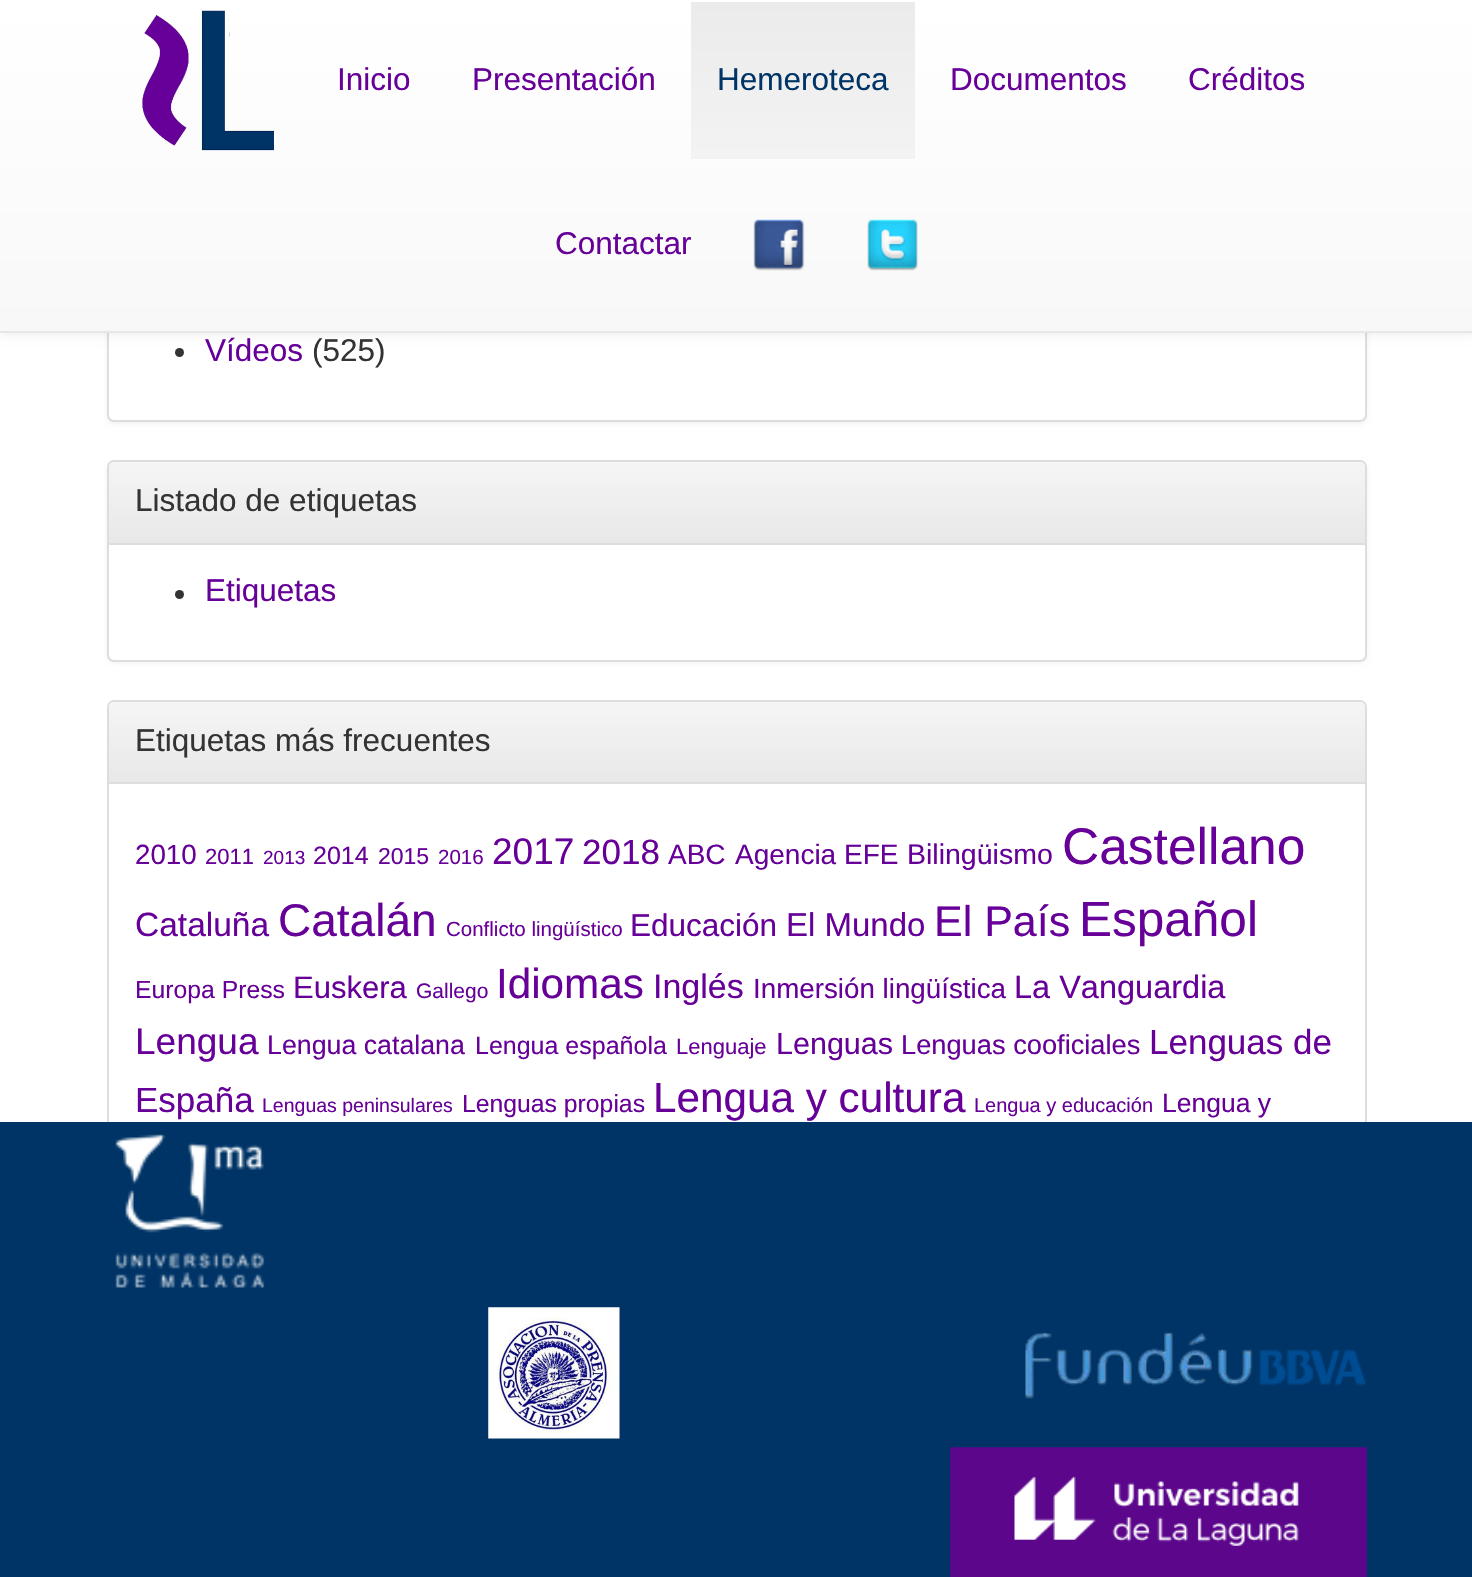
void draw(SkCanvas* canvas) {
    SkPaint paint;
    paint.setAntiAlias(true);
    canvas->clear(0xFFFFFFFF);
    paint.setColor(0x0D000000);
    paint.setMaskFilter(SkMaskFilter::MakeBlur(kNormal_SkBlurStyle, 2));
    canvas->drawRoundRect(SkRect::MakeXYWH(107, -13, 1260, 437), 7, 7, paint);
    paint.setMaskFilter(nullptr);
    paint.setColor(0xFFFFFFFF);
    canvas->drawRoundRect(SkRect::MakeXYWH(108, -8, 1258, 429), 6, 6, paint);
    paint.setStyle(SkPaint::kStroke_Style);
    paint.setStrokeWidth(2);
    paint.setColor(0xFFDDDDDD);
    canvas->drawRoundRect(SkRect::MakeXYWH(108, -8, 1258, 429), 6, 6, paint);
    paint.setStyle(SkPaint::kFill_Style);
    paint.setColor(0xFF333333);
    canvas->drawCircle(179.5f, 352.5f, 4.5f, paint);
    paint.setColor(0x12000000);
    paint.setMaskFilter(SkMaskFilter::MakeBlur(kNormal_SkBlurStyle, 4.5f));
    canvas->drawRect(SkRect::MakeXYWH(0, 2, 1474, 332), paint);
    paint.setMaskFilter(nullptr);
    {
        const SkColor colors[] = {0xFFFFFFFF, 0xFFF8F8F8};
        const float stops[] = {0, 1};
        const SkPoint ends[] = {{737, 0}, {737, 331}};
        paint.setShader(SkGradientShader::MakeLinear(ends, colors, stops, 2, SkTileMode::kClamp));
        paint.setAlpha(255);
    }
    canvas->drawRect(SkRect::MakeXYWH(0, 0, 1472, 331), paint);
    paint.setShader(nullptr);
    paint.setColor(0xFFE7E7E7);
    canvas->drawRect(SkRect::MakeXYWH(0, 331, 1472, 2), paint);
    canvas->drawImageRect(SkImages::DeferredFromEncodedData(SkData::MakeFromFileName("img1.png")), SkRect::MakeXYWH(142, 10, 132, 141), SkSamplingOptions());
    SkFont font1(fontMgr->matchFamilyStyle("Liberation Sans", SkFontStyle::Normal()), 31.5f);
    font1.setSubpixel(true);
    paint.setColor(0xFF670099);
    canvas->drawString("Inicio", 337, 90, font1, paint);
    canvas->drawString("Presentación", 472, 90, font1, paint);
    {
        const SkColor colors[] = {0xFFEBEBEB, 0xFFF3F3F3};
        const float stops[] = {0, 1};
        const SkPoint ends[] = {{803, 1.7f}, {803, 159}};
        paint.setShader(SkGradientShader::MakeLinear(ends, colors, stops, 2, SkTileMode::kClamp));
        paint.setAlpha(255);
    }
    canvas->drawRect(SkRect::MakeXYWH(691, 2, 224, 157), paint);
    paint.setShader(nullptr);
    paint.setColor(0xFF003466);
    canvas->drawString("Hemeroteca", 717, 90, font1, paint);
    paint.setColor(0xFF670099);
    canvas->drawString("Documentos", 950, 90, font1, paint);
    canvas->drawString("Créditos", 1188, 90, font1, paint);
    canvas->drawString("Contactar", 555, 254, font1, paint);
    canvas->drawImageRect(SkImages::DeferredFromEncodedData(SkData::MakeFromFileName("img2.png")), SkRect::MakeXYWH(753, 219, 52, 52), SkSamplingOptions());
    canvas->drawImageRect(SkImages::DeferredFromEncodedData(SkData::MakeFromFileName("img3.png")), SkRect::MakeXYWH(867, 219, 51, 52), SkSamplingOptions());
    canvas->drawString("Vídeos", 205, 361, font1, paint);
    paint.setColor(0xFF333333);
    canvas->drawString("(525)", 312, 361, font1, paint);
    paint.setColor(0x0D000000);
    paint.setMaskFilter(SkMaskFilter::MakeBlur(kNormal_SkBlurStyle, 2));
    canvas->drawRoundRect(SkRect::MakeXYWH(107, 462, 1260, 201), 7, 7, paint);
    paint.setMaskFilter(nullptr);
    paint.setColor(0xFFFFFFFF);
    canvas->drawRoundRect(SkRect::MakeXYWH(108, 461, 1258, 200), 6, 6, paint);
    paint.setStyle(SkPaint::kStroke_Style);
    paint.setColor(0xFFDDDDDD);
    canvas->drawRoundRect(SkRect::MakeXYWH(108, 461, 1258, 200), 6, 6, paint);
    paint.setStyle(SkPaint::kFill_Style);
    {
        const SkColor colors[] = {0xFFF5F5F5, 0xFFE8E8E8};
        const float stops[] = {0, 1};
        const SkPoint ends[] = {{737, 462}, {737, 543}};
        paint.setShader(SkGradientShader::MakeLinear(ends, colors, stops, 2, SkTileMode::kClamp));
        paint.setAlpha(255);
    }
    canvas->drawPath(SkPathBuilder().moveTo(114, 462).lineTo(1360, 462).cubicTo(1363, 462, 1365, 464, 1365, 467).lineTo(1365, 543).lineTo(109, 543).lineTo(109, 467).cubicTo(109, 464, 111, 462, 114, 462).close().detach(), paint);
    paint.setShader(nullptr);
    paint.setColor(0xFFDDDDDD);
    canvas->drawRect(SkRect::MakeXYWH(109, 543, 1256, 2), paint);
    paint.setColor(0xFF333333);
    canvas->drawString("Listado de etiquetas", 135, 511, font1, paint);
    canvas->drawCircle(179.5f, 594.5f, 4.5f, paint);
    paint.setColor(0xFF670099);
    canvas->drawString("Etiquetas", 205, 601, font1, paint);
    paint.setStyle(SkPaint::kStroke_Style);
    paint.setColor(0xFFDDDDDD);
    canvas->drawRoundRect(SkRect::MakeXYWH(108, 701, 1258, 563), 6, 6, paint);
    paint.setStyle(SkPaint::kFill_Style);
    {
        const SkColor colors[] = {0xFFF5F5F5, 0xFFE8E8E8};
        const float stops[] = {0, 1};
        const SkPoint ends[] = {{737, 702}, {737, 782}};
        paint.setShader(SkGradientShader::MakeLinear(ends, colors, stops, 2, SkTileMode::kClamp));
        paint.setAlpha(255);
    }
    canvas->drawPath(SkPathBuilder().moveTo(114, 702).lineTo(1360, 702).cubicTo(1363, 702, 1365, 704, 1365, 707).lineTo(1365, 782).lineTo(109, 782).lineTo(109, 707).cubicTo(109, 704, 111, 702, 114, 702).close().detach(), paint);
    paint.setShader(nullptr);
    paint.setColor(0xFFDDDDDD);
    canvas->drawRect(SkRect::MakeXYWH(109, 782, 1256, 2), paint);
    paint.setColor(0xFF333333);
    canvas->drawString("Etiquetas más frecuentes", 135, 751, font1, paint);
    SkFont font2(fontMgr->matchFamilyStyle("Liberation Sans", SkFontStyle::Normal()), 27.75f);
    font2.setSubpixel(true);
    paint.setColor(0xFF670099);
    canvas->drawString("2010", 135, 864, font2, paint);
    SkFont font3(fontMgr->matchFamilyStyle("Liberation Sans", SkFontStyle::Normal()), 22);
    font3.setSubpixel(true);
    canvas->drawString("2011", 205, 864, font3, paint);
    SkFont font4(fontMgr->matchFamilyStyle("Liberation Sans", SkFontStyle::Normal()), 19);
    font4.setSubpixel(true);
    canvas->drawString("2013", 263, 864, font4, paint);
    SkFont font5(fontMgr->matchFamilyStyle("Liberation Sans", SkFontStyle::Normal()), 25);
    font5.setSubpixel(true);
    canvas->drawString("2014", 313, 864, font5, paint);
    SkFont font6(fontMgr->matchFamilyStyle("Liberation Sans", SkFontStyle::Normal()), 23);
    font6.setSubpixel(true);
    canvas->drawString("2015", 378, 864, font6, paint);
    SkFont font7(fontMgr->matchFamilyStyle("Liberation Sans", SkFontStyle::Normal()), 20.5f);
    font7.setSubpixel(true);
    canvas->drawString("2016", 438, 864, font7, paint);
    SkFont font8(fontMgr->matchFamilyStyle("Liberation Sans", SkFontStyle::Normal()), 37);
    font8.setSubpixel(true);
    canvas->drawString("2017", 492, 864, font8, paint);
    SkFont font9(fontMgr->matchFamilyStyle("Liberation Sans", SkFontStyle::Normal()), 35);
    font9.setSubpixel(true);
    canvas->drawString("2018", 582, 864, font9, paint);
    SkFont font10(fontMgr->matchFamilyStyle("Liberation Sans", SkFontStyle::Normal()), 28);
    font10.setSubpixel(true);
    canvas->drawString("ABC", 668, 864, font10, paint);
    canvas->drawString("Agencia EFE", 735, 864, font10, paint);
    SkFont font11(fontMgr->matchFamilyStyle("Liberation Sans", SkFontStyle::Normal()), 28.5f);
    font11.setSubpixel(true);
    canvas->drawString("Bilingüismo", 907, 864, font11, paint);
    SkFont font12(fontMgr->matchFamilyStyle("Liberation Sans", SkFontStyle::Normal()), 51.5f);
    font12.setSubpixel(true);
    canvas->drawString("Castellano", 1062, 864, font12, paint);
    SkFont font13(fontMgr->matchFamilyStyle("Liberation Sans", SkFontStyle::Normal()), 33.5f);
    font13.setSubpixel(true);
    canvas->drawString("Cataluña", 135, 936, font13, paint);
    SkFont font14(fontMgr->matchFamilyStyle("Liberation Sans", SkFontStyle::Normal()), 46);
    font14.setSubpixel(true);
    canvas->drawString("Catalán", 278, 936, font14, paint);
    canvas->drawString("Conflicto lingüístico", 446, 936, font7, paint);
    canvas->drawString("Educación", 630, 936, font1, paint);
    SkFont font15(fontMgr->matchFamilyStyle("Liberation Sans", SkFontStyle::Normal()), 33);
    font15.setSubpixel(true);
    canvas->drawString("El Mundo", 786, 936, font15, paint);
    SkFont font16(fontMgr->matchFamilyStyle("Liberation Sans", SkFontStyle::Normal()), 43);
    font16.setSubpixel(true);
    canvas->drawString("El País", 934, 936, font16, paint);
    SkFont font17(fontMgr->matchFamilyStyle("Liberation Sans", SkFontStyle::Normal()), 49.5f);
    font17.setSubpixel(true);
    canvas->drawString("Español", 1079, 936, font17, paint);
    SkFont font18(fontMgr->matchFamilyStyle("Liberation Sans", SkFontStyle::Normal()), 24.75f);
    font18.setSubpixel(true);
    canvas->drawString("Europa Press", 135, 998, font18, paint);
    SkFont font19(fontMgr->matchFamilyStyle("Liberation Sans", SkFontStyle::Normal()), 31);
    font19.setSubpixel(true);
    canvas->drawString("Euskera", 293, 998, font19, paint);
    SkFont font20(fontMgr->matchFamilyStyle("Liberation Sans", SkFontStyle::Normal()), 21);
    font20.setSubpixel(true);
    canvas->drawString("Gallego", 416, 998, font20, paint);
    SkFont font21(fontMgr->matchFamilyStyle("Liberation Sans", SkFontStyle::Normal()), 42.25f);
    font21.setSubpixel(true);
    canvas->drawString("Idiomas", 496, 998, font21, paint);
    SkFont font22(fontMgr->matchFamilyStyle("Liberation Sans", SkFontStyle::Normal()), 34);
    font22.setSubpixel(true);
    canvas->drawString("Inglés", 653, 998, font22, paint);
    canvas->drawString("Inmersión lingüística", 753, 998, font2, paint);
    SkFont font23(fontMgr->matchFamilyStyle("Liberation Sans", SkFontStyle::Normal()), 32.5f);
    font23.setSubpixel(true);
    canvas->drawString("La Vanguardia", 1014, 998, font23, paint);
    canvas->drawString("Lengua", 135, 1054, font8, paint);
    SkFont font24(fontMgr->matchFamilyStyle("Liberation Sans", SkFontStyle::Normal()), 26.75f);
    font24.setSubpixel(true);
    canvas->drawString("Lengua catalana", 267, 1054, font24, paint);
    canvas->drawString("Lengua española", 475, 1054, font5, paint);
    canvas->drawString("Lenguaje", 676, 1054, font3, paint);
    SkFont font25(fontMgr->matchFamilyStyle("Liberation Sans", SkFontStyle::Normal()), 30.5f);
    font25.setSubpixel(true);
    canvas->drawString("Lenguas", 776, 1054, font25, paint);
    SkFont font26(fontMgr->matchFamilyStyle("Liberation Sans", SkFontStyle::Normal()), 27.25f);
    font26.setSubpixel(true);
    canvas->drawString("Lenguas cooficiales", 901, 1054, font26, paint);
    canvas->drawString("Lenguas de", 1149, 1054, font9, paint);
    canvas->drawString("España", 135, 1112, font9, paint);
    SkFont font27(fontMgr->matchFamilyStyle("Liberation Sans", SkFontStyle::Normal()), 19.5f);
    font27.setSubpixel(true);
    canvas->drawString("Lenguas peninsulares", 262, 1112, font27, paint);
    canvas->drawString("Lenguas propias", 462, 1112, font18, paint);
    canvas->drawString("Lengua y cultura", 653, 1112, font21, paint);
    SkFont font28(fontMgr->matchFamilyStyle("Liberation Sans", SkFontStyle::Normal()), 20);
    font28.setSubpixel(true);
    canvas->drawString("Lengua y educación", 974, 1112, font28, paint);
    SkFont font29(fontMgr->matchFamilyStyle("Liberation Sans", SkFontStyle::Normal()), 26.5f);
    font29.setSubpixel(true);
    canvas->drawString("Lengua y", 1162, 1112, font29, paint);
    paint.setColor(0xFF003466);
    canvas->drawRect(SkRect::MakeXYWH(0, 1122, 1472, 455), paint);
    canvas->drawImageRect(SkImages::DeferredFromEncodedData(SkData::MakeFromFileName("img4.png")), SkRect::MakeXYWH(115, 1134, 150, 154), SkSamplingOptions());
    canvas->drawImageRect(SkImages::DeferredFromEncodedData(SkData::MakeFromFileName("img5.png")), SkRect::MakeXYWH(488, 1307, 132, 132), SkSamplingOptions());
    canvas->drawImageRect(SkImages::DeferredFromEncodedData(SkData::MakeFromFileName("img6.png")), SkRect::MakeXYWH(1025, 1332, 341, 67), SkSamplingOptions());
    canvas->drawImageRect(SkImages::DeferredFromEncodedData(SkData::MakeFromFileName("img7.png")), SkRect::MakeXYWH(950, 1447, 417, 130), SkSamplingOptions());
}
